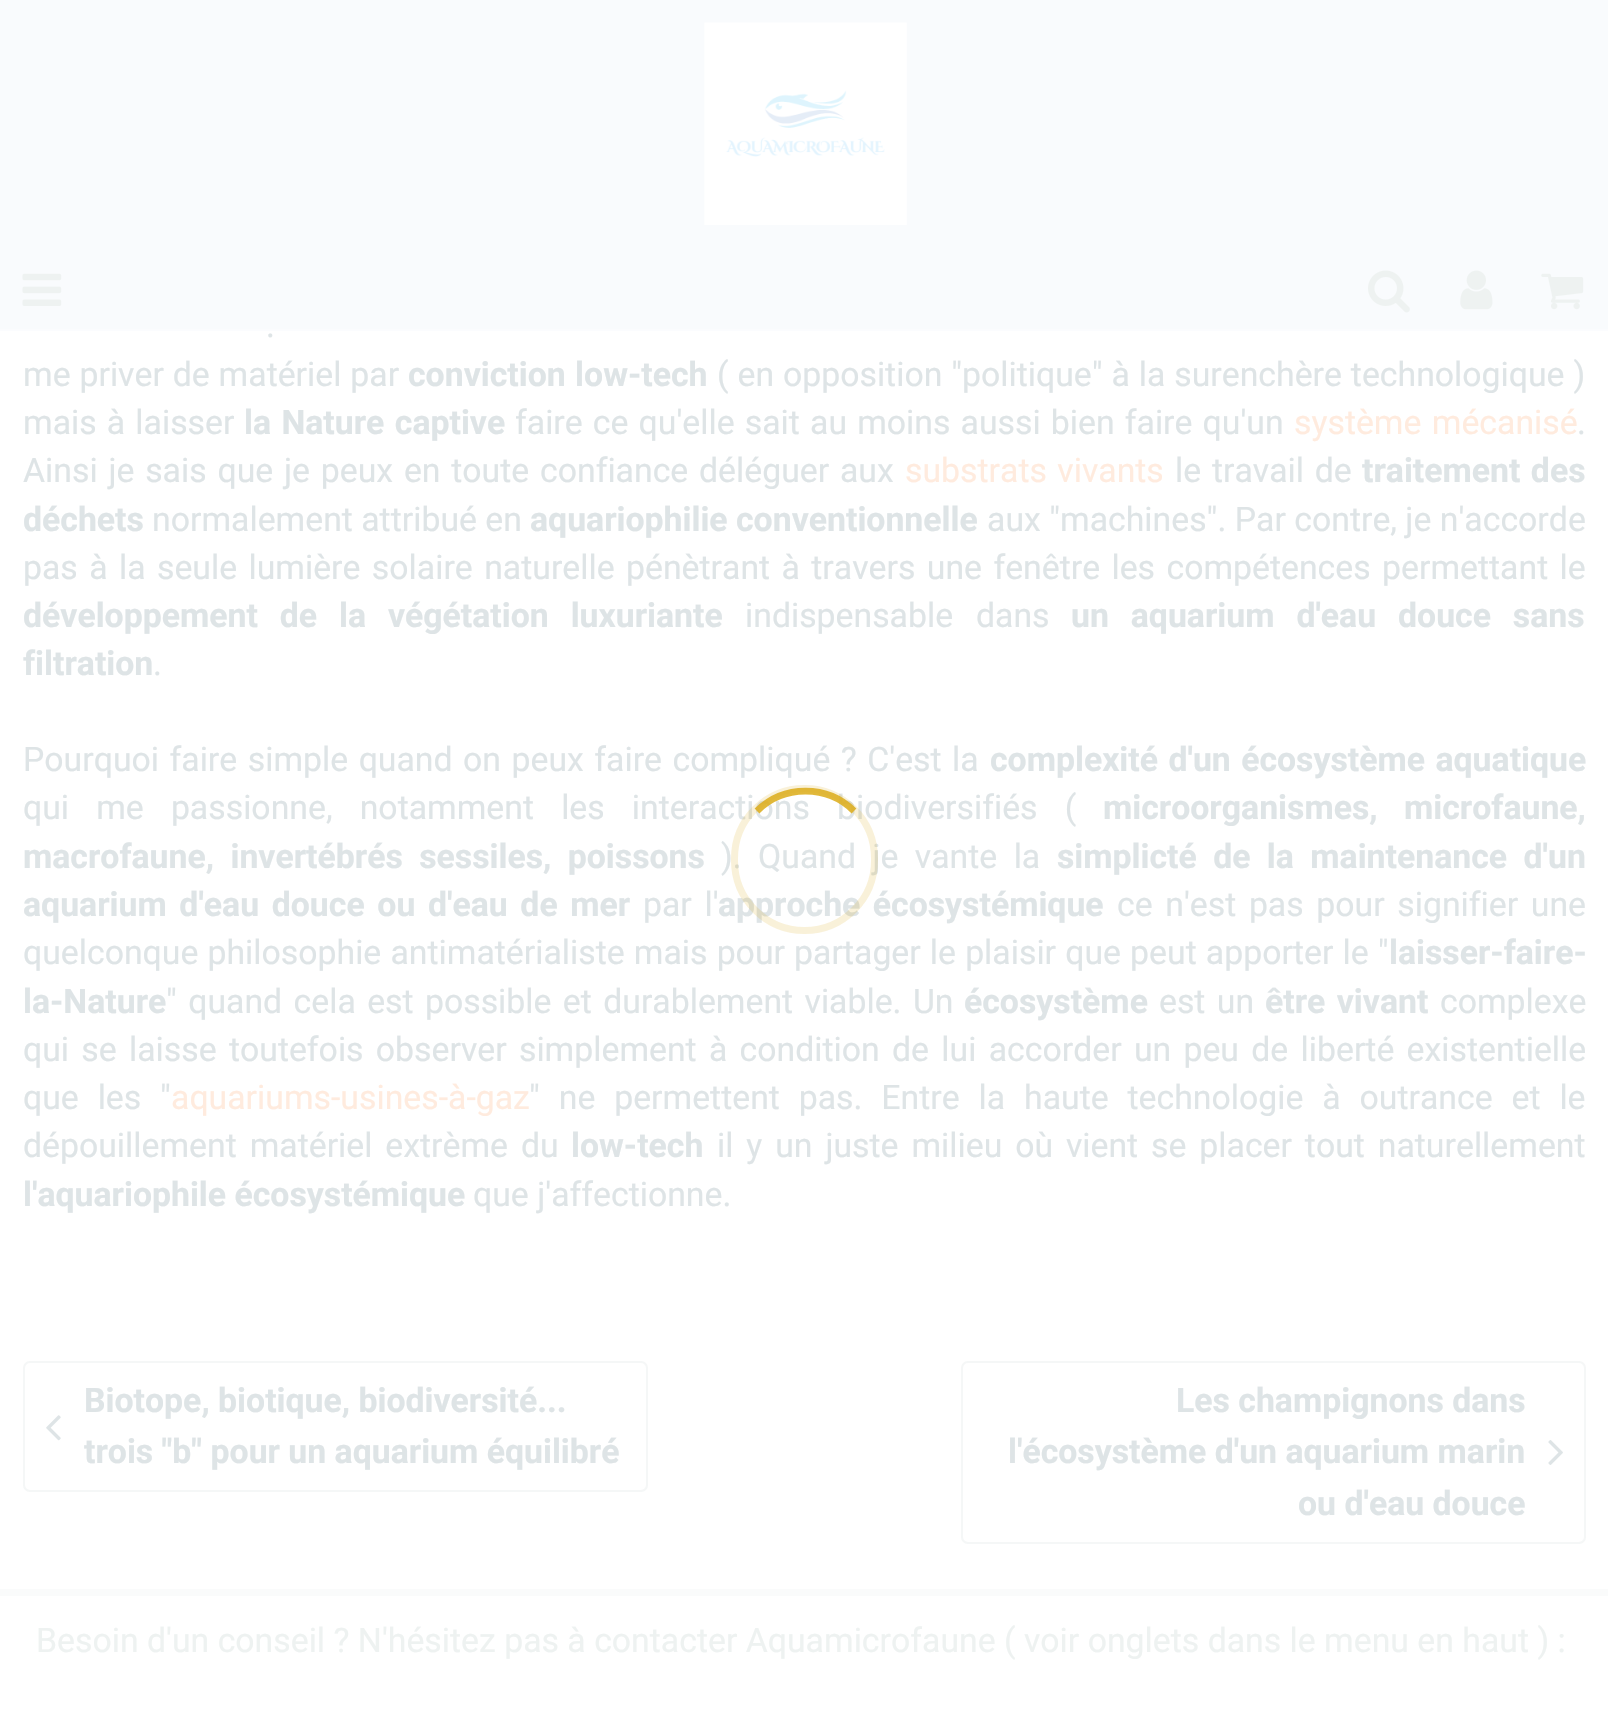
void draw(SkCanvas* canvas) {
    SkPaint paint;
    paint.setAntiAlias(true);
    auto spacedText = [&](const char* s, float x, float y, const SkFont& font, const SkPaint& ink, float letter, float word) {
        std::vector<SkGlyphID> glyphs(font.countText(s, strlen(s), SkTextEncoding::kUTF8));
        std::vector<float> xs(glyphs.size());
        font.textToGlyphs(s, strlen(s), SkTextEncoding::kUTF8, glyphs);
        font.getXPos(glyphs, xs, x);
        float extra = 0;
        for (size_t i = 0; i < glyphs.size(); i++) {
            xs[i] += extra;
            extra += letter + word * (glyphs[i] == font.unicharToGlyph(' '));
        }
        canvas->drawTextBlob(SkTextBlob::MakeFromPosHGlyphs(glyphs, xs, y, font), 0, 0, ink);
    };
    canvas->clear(0xFFFFFFFF);
    paint.setColor(0xFFF9FBFD);
    canvas->drawRect(SkRect::MakeXYWH(0, 0, 1608, 329), paint);
    canvas->drawImageRect(SkImages::DeferredFromEncodedData(SkData::MakeFromFileName("img1.png")), SkRect::MakeXYWH(704, 22, 203, 203), SkSamplingOptions());
    paint.setColor(0xFFFBFCFE);
    canvas->drawRect(SkRect::MakeXYWH(0, 329, 1608, 2), paint);
    canvas->drawImageRect(SkImages::DeferredFromEncodedData(SkData::MakeFromFileName("img2.png")), SkRect::MakeXYWH(22, 273, 40, 33), SkSamplingOptions());
    canvas->drawImageRect(SkImages::DeferredFromEncodedData(SkData::MakeFromFileName("img3.png")), SkRect::MakeXYWH(1368, 270, 42, 43), SkSamplingOptions());
    canvas->drawImageRect(SkImages::DeferredFromEncodedData(SkData::MakeFromFileName("img4.png")), SkRect::MakeXYWH(1460, 270, 33, 40), SkSamplingOptions());
    canvas->drawImageRect(SkImages::DeferredFromEncodedData(SkData::MakeFromFileName("img5.png")), SkRect::MakeXYWH(1541, 273, 43, 37), SkSamplingOptions());
    SkFont font1(fontMgr->matchFamilyStyle("Roboto", SkFontStyle::Normal()), 33.8f);
    font1.setSubpixel(true);
    paint.setColor(0xFFDEE4E6);
    spacedText(".", 266, 337, font1, paint, 0, 1);
    spacedText("me priver de matériel par", 23, 386, font1, paint, 0, 0.5f);
    SkFont font2(fontMgr->matchFamilyStyle("Roboto", SkFontStyle::Bold()), 33.8f);
    font2.setSubpixel(true);
    spacedText("conviction low-tech", 408, 386, font2, paint, 0, 1);
    spacedText("( en opposition \"politique\" à la surenchère technologique )", 717, 386, font1, paint, 0, 0.5f);
    spacedText("mais à laisser", 23, 434, font1, paint, 0, 1.75f);
    spacedText("la Nature captive", 244, 434, font2, paint, 0, 2);
    spacedText("faire ce qu'elle sait au moins aussi bien faire qu'un", 515, 434, font1, paint, 0, 1.75f);
    paint.setColor(0xFFFFEBDE);
    spacedText("système mécanisé", 1294, 434, font1, paint, 0, 2);
    paint.setColor(0xFFDEE4E6);
    canvas->drawString(".", 1577, 434, font1, paint);
    spacedText("Ainsi je sais que je peux en toute confiance déléguer aux", 23, 482, font1, paint, 0, 2.4f);
    paint.setColor(0xFFFFEBDE);
    spacedText("substrats vivants", 905, 482, font1, paint, 0, 2);
    paint.setColor(0xFFDEE4E6);
    spacedText("le travail de", 1175, 482, font1, paint, 0, 2.4f);
    spacedText("traitement des", 1362, 482, font2, paint, 0, 2);
    canvas->drawString("déchets", 23, 531, font2, paint);
    canvas->drawString("normalement attribué en", 152, 531, font1, paint);
    canvas->drawString("aquariophilie conventionnelle", 530, 531, font2, paint);
    canvas->drawString("aux \"machines\". Par contre, je n'accorde", 987, 531, font1, paint);
    spacedText("pas à la seule lumière solaire naturelle pénètrant à travers une fenêtre les compétences permettant le", 23, 579, font1, paint, 0, 3);
    spacedText("développement de la végétation luxuriante", 23, 627, font2, paint, 0, 13.5f);
    canvas->drawString("indispensable", 745, 627, font1, paint);
    canvas->drawString("dans", 976, 627, font1, paint);
    spacedText("un aquarium d'eau douce sans", 1071, 627, font2, paint, 0, 13.5f);
    canvas->drawString("filtration", 23, 675, font2, paint);
    canvas->drawString(".", 153, 675, font1, paint);
    spacedText("Pourquoi faire simple quand on peux faire compliqué ? C'est la", 23, 771, font1, paint, 0, 2.1f);
    spacedText("complexité d'un écosystème aquatique", 990, 771, font2, paint, 0, 2);
    spacedText("qui me passionne, notamment les interactions biodiversifiés (", 23, 819, font1, paint, 0, 18.75f);
    spacedText("microorganismes, microfaune,", 1103, 819, font2, paint, 0, 18);
    spacedText("macrofaune, invertébrés sessiles, poissons", 23, 868, font2, paint, 0, 8);
    spacedText("). Quand je vante la", 721, 868, font1, paint, 0, 8);
    spacedText("simplicté de la maintenance d'un", 1057, 868, font2, paint, 0, 8);
    spacedText("aquarium d'eau douce ou d'eau de mer", 23, 916, font2, paint, 0, 4.25f);
    spacedText("par l'", 643, 916, font1, paint, 0, 4.25f);
    spacedText("approche écosystémique", 718, 916, font2, paint, 0, 4);
    spacedText("ce n'est pas pour signifier une", 1117, 916, font1, paint, 0, 4.25f);
    spacedText("quelconque philosophie antimatérialiste mais pour partager le plaisir que peut apporter le \"", 23, 964, font1, paint, 0, 0.75f);
    canvas->drawString("laisser-faire-", 1389, 964, font2, paint);
    canvas->drawString("la-Nature", 23, 1013, font2, paint);
    spacedText("\" quand cela est possible et durablement viable. Un", 166, 1013, font1, paint, 0, 3);
    canvas->drawString("écosystème", 964, 1013, font2, paint);
    spacedText("est un", 1159, 1013, font1, paint, 0, 3);
    spacedText("être vivant", 1265, 1013, font2, paint, 0, 3);
    canvas->drawString("complexe", 1440, 1013, font1, paint);
    spacedText("qui se laisse toutefois observer simplement à condition de lui accorder un peu de liberté existentielle", 23, 1061, font1, paint, 0, 3.9f);
    spacedText("que les \"", 23, 1109, font1, paint, 0, 10.5f);
    paint.setColor(0xFFFFEBDE);
    canvas->drawString("aquariums-usines-à-gaz", 171, 1109, font1, paint);
    paint.setColor(0xFFDEE4E6);
    spacedText("\" ne permettent pas. Entre la haute technologie à outrance et le", 529, 1109, font1, paint, 0, 10.5f);
    spacedText("dépouillement matériel extrème du", 23, 1157, font1, paint, 0, 4.5f);
    canvas->drawString("low-tech", 571, 1157, font2, paint);
    spacedText("il y un juste milieu où vient se placer tout naturellement", 717, 1157, font1, paint, 0, 4.5f);
    canvas->drawString("l'aquariophile écosystémique", 23, 1206, font2, paint);
    canvas->drawString("que j'affectionne.", 473, 1206, font1, paint);
    canvas->drawImageRect(SkImages::DeferredFromEncodedData(SkData::MakeFromFileName("img6.png")), SkRect::MakeXYWH(46, 1415, 15, 26), SkSamplingOptions());
    paint.setStyle(SkPaint::kStroke_Style);
    paint.setStrokeWidth(2);
    paint.setColor(0xFFF5F7F7);
    canvas->drawRoundRect(SkRect::MakeXYWH(24, 1362, 623, 129), 6, 6, paint);
    paint.setStyle(SkPaint::kFill_Style);
    paint.setColor(0xFFDEE4E6);
    canvas->drawString("Biotope, biotique, biodiversité...", 84, 1412, font2, paint);
    canvas->drawString("trois \"b\" pour un aquarium équilibré", 84, 1463, font2, paint);
    canvas->drawImageRect(SkImages::DeferredFromEncodedData(SkData::MakeFromFileName("img7.png")), SkRect::MakeXYWH(1548, 1440, 15, 25), SkSamplingOptions());
    paint.setStyle(SkPaint::kStroke_Style);
    paint.setColor(0xFFF5F7F7);
    canvas->drawRoundRect(SkRect::MakeXYWH(962, 1362, 623, 181), 6, 6, paint);
    paint.setStyle(SkPaint::kFill_Style);
    paint.setColor(0xFFDEE4E6);
    canvas->drawString("Les champignons dans", 1176, 1412, font2, paint);
    canvas->drawString("l'écosystème d'un aquarium marin", 1008, 1463, font2, paint);
    canvas->drawString("ou d'eau douce", 1298, 1515, font2, paint);
    paint.setStyle(SkPaint::kStroke_Style);
    paint.setStrokeWidth(6.8f);
    paint.setColor(0xDEDCAE1D);
    canvas->drawPath(SkPathBuilder().moveTo(757, 811).cubicTo(783.5f, 784.5f, 827.5f, 784.5f, 854, 811).detach(), paint);
    paint.setStrokeWidth(7);
    paint.setColor(0x2BDCAE1D);
    canvas->drawRoundRect(SkRect::MakeXYWH(734.5f, 788.5f, 140, 142), 70, 70, paint);
    paint.setStyle(SkPaint::kFill_Style);
    paint.setColor(0xFFFAFBFB);
    canvas->drawRect(SkRect::MakeXYWH(0, 1589, 1608, 7), paint);
    paint.setColor(0xFFEEF2F1);
    canvas->drawString("Besoin d'un conseil ? N'hésitez pas à contacter Aquamicrofaune ( voir onglets dans le menu en haut ) :", 36, 1652, font1, paint);
}
